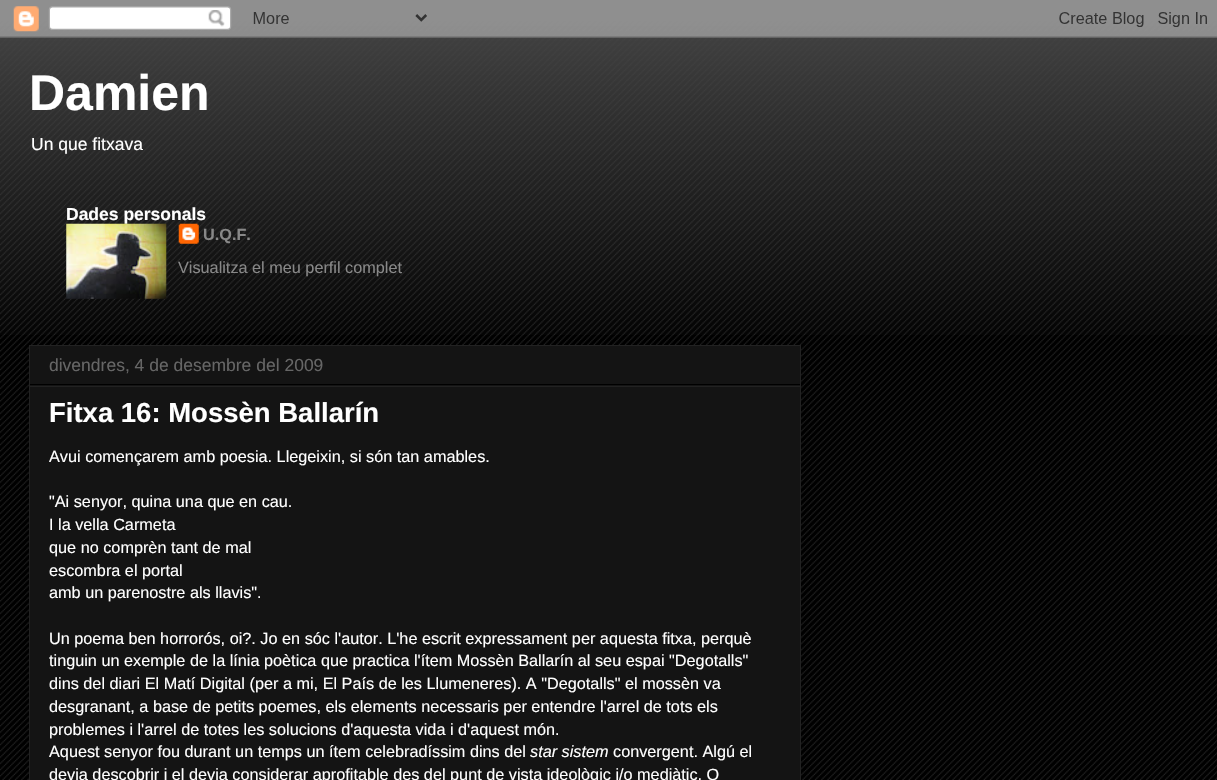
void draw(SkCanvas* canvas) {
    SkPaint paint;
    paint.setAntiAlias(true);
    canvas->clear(0xFF000000);
    canvas->drawImageRect(SkImages::DeferredFromEncodedData(SkData::MakeFromFileName("img1.png")), SkRect::MakeXYWH(0, 16, 1217, 764), SkSamplingOptions());
    canvas->drawImageRect(SkImages::DeferredFromEncodedData(SkData::MakeFromFileName("img2.png")), SkRect::MakeXYWH(0, 0, 1217, 335), SkSamplingOptions());
    canvas->drawImageRect(SkImages::DeferredFromEncodedData(SkData::MakeFromFileName("img3.png")), SkRect::MakeXYWH(0, 0, 1217, 38), SkSamplingOptions());
    SkFont font1(fontMgr->matchFamilyStyle("Liberation Sans", SkFontStyle::Bold()), 50);
    font1.setSubpixel(true);
    paint.setColor(0xFFFFFFFF);
    canvas->drawString("Damien", 29, 110, font1, paint);
    SkFont font2(fontMgr->matchFamilyStyle("Liberation Sans", SkFontStyle::Normal()), 17.5f);
    font2.setSubpixel(true);
    canvas->drawString("Un que fitxava", 31, 150, font2, paint);
    canvas->drawImageRect(SkImages::DeferredFromEncodedData(SkData::MakeFromFileName("img5.png")), SkRect::MakeXYWH(178, 223, 21, 21), SkSamplingOptions());
    SkFont font3(fontMgr->matchFamilyStyle("Liberation Sans", SkFontStyle::Bold()), 17.5f);
    font3.setSubpixel(true);
    canvas->drawString("Dades personals", 66, 220, font3, paint);
    canvas->drawImageRect(SkImages::DeferredFromEncodedData(SkData::MakeFromFileName("img4.png")), SkRect::MakeXYWH(66, 223, 101, 76), SkSamplingOptions());
    SkFont font4(fontMgr->matchFamilyStyle("Liberation Sans", SkFontStyle::Bold()), 16.25f);
    font4.setSubpixel(true);
    paint.setColor(0xFF888888);
    canvas->drawString("U.Q.F.", 203, 240, font4, paint);
    SkFont font5(fontMgr->matchFamilyStyle("Liberation Sans", SkFontStyle::Normal()), 16.25f);
    font5.setSubpixel(true);
    canvas->drawString("Visualitza el meu perfil complet", 178, 273, font5, paint);
    paint.setColor(0xFF141414);
    canvas->drawRect(SkRect::MakeXYWH(29.5f, 345.5f, 771, 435), paint);
    paint.setStyle(SkPaint::kStroke_Style);
    paint.setStrokeWidth(1);
    paint.setColor(0xFF222222);
    canvas->drawRect(SkRect::MakeXYWH(29.5f, 345.5f, 771, 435), paint);
    paint.setStyle(SkPaint::kFill_Style);
    paint.setColor(0xFF000000);
    canvas->drawRect(SkRect::MakeXYWH(30, 384, 770, 1), paint);
    paint.setColor(0xFF666666);
    canvas->drawString("divendres, 4 de desembre del 2009", 49, 371, font2, paint);
    paint.setColor(0xFF222222);
    canvas->drawRect(SkRect::MakeXYWH(30, 386, 770, 1), paint);
    SkFont font6(fontMgr->matchFamilyStyle("Liberation Sans", SkFontStyle::Bold()), 27.5f);
    font6.setSubpixel(true);
    paint.setColor(0xFFFFFFFF);
    canvas->drawString("Fitxa 16: Mossèn Ballarín", 49, 422, font6, paint);
    canvas->drawString("Avui començarem amb poesia. Llegeixin, si són tan amables.", 49, 462, font5, paint);
    canvas->drawString("\"Ai senyor, quina una que en cau.", 49, 507, font5, paint);
    canvas->drawString("I la vella Carmeta", 49, 530, font5, paint);
    canvas->drawString("que no comprèn tant de mal", 49, 553, font5, paint);
    canvas->drawString("escombra el portal", 49, 576, font5, paint);
    canvas->drawString("amb un parenostre als llavis\".", 49, 598, font5, paint);
    canvas->drawString("Un poema ben horrorós, oi?. Jo en sóc l'autor. L'he escrit expressament per aquesta fitxa, perquè", 49, 644, font5, paint);
    canvas->drawString("tinguin un exemple de la línia poètica que practica l'ítem Mossèn Ballarín al seu espai \"Degotalls\"", 49, 666, font5, paint);
    canvas->drawString("dins del diari El Matí Digital (per a mi, El País de les Llumeneres). A \"Degotalls\" el mossèn va", 49, 689, font5, paint);
    canvas->drawString("desgranant, a base de petits poemes, els elements necessaris per entendre l'arrel de tots els", 49, 712, font5, paint);
    canvas->drawString("problemes i l'arrel de totes les solucions d'aquesta vida i d'aquest món.", 49, 735, font5, paint);
    canvas->drawString("Aquest senyor fou durant un temps un ítem celebradíssim dins del", 49, 757, font5, paint);
    SkFont font7(fontMgr->matchFamilyStyle("Liberation Sans", SkFontStyle::Italic()), 16.25f);
    font7.setSubpixel(true);
    canvas->drawString("star sistem", 530, 757, font7, paint);
    canvas->drawString("convergent. Algú el", 613, 757, font5, paint);
    canvas->drawString("devia descobrir i el devia considerar aprofitable des del punt de vista ideològic i/o mediàtic. O", 49, 780, font5, paint);
}
